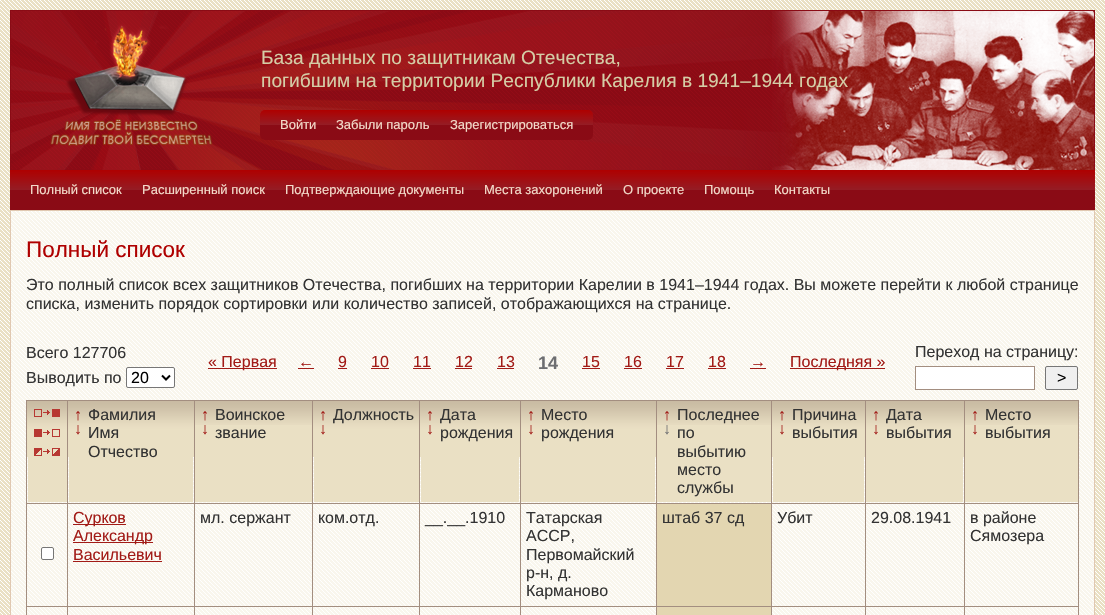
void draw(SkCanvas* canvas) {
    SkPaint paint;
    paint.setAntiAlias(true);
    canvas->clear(0xFFFFFFFF);
    canvas->drawImageRect(SkImages::DeferredFromEncodedData(SkData::MakeFromFileName("img1.png")), SkRect::MakeXYWH(0, 0, 1105, 615), SkSamplingOptions());
    canvas->drawImageRect(SkImages::DeferredFromEncodedData(SkData::MakeFromFileName("img2.png")), SkRect::MakeXYWH(11, 11, 1083, 158), SkSamplingOptions());
    paint.setStyle(SkPaint::kStroke_Style);
    paint.setStrokeWidth(1);
    paint.setColor(0xFF8A0B15);
    canvas->drawRect(SkRect::MakeXYWH(10.5f, 10.5f, 1084, 159), paint);
    canvas->drawImageRect(SkImages::DeferredFromEncodedData(SkData::MakeFromFileName("img3.png")), SkRect::MakeXYWH(11, 11, 787, 159), SkSamplingOptions());
    canvas->drawImageRect(SkImages::DeferredFromEncodedData(SkData::MakeFromFileName("img4.png")), SkRect::MakeXYWH(772, 11, 322, 159), SkSamplingOptions());
    SkFont font1(fontMgr->matchFamilyStyle("Liberation Sans", SkFontStyle::Normal()), 19.2f);
    font1.setSubpixel(true);
    paint.setStyle(SkPaint::kFill_Style);
    paint.setColor(0xFFD5CDA6);
    canvas->drawString("База данных по защитникам Отечества,", 261, 64, font1, paint);
    canvas->drawString("погибшим на территории Республики Карелия в 1941–1944 годах", 261, 87, font1, paint);
    {
        const SkColor colors[] = {0xFFAF0000, 0xFF941D25, 0xFF8A0B15};
        const float stops[] = {0, 0.5f, 0.5f};
        const SkPoint ends[] = {{427, 110}, {427, 140}};
        paint.setShader(SkGradientShader::MakeLinear(ends, colors, stops, 3, SkTileMode::kClamp));
        paint.setAlpha(255);
    }
    canvas->drawRoundRect(SkRect::MakeXYWH(260, 110, 333, 30), 5, 5, paint);
    SkFont font2(fontMgr->matchFamilyStyle("Liberation Sans", SkFontStyle::Normal()), 13);
    font2.setSubpixel(true);
    paint.setShader(nullptr);
    paint.setColor(0xFFF4DBCA);
    canvas->drawString("Войти", 280, 129, font2, paint);
    canvas->drawString("Забыли пароль", 336, 129, font2, paint);
    canvas->drawString("Зарегистрироваться", 450, 129, font2, paint);
    {
        const SkColor colors[] = {0xFFAF0000, 0xFF941D25, 0xFF8A0B15};
        const float stops[] = {0, 0.5f, 0.5f};
        const SkPoint ends[] = {{553, 170}, {553, 210}};
        paint.setShader(SkGradientShader::MakeLinear(ends, colors, stops, 3, SkTileMode::kClamp));
        paint.setAlpha(255);
    }
    canvas->drawRect(SkRect::MakeXYWH(10, 170, 1085, 40), paint);
    paint.setShader(nullptr);
    paint.setColor(0xFFF4DBCA);
    canvas->drawString("Полный список", 30, 194, font2, paint);
    canvas->drawString("Расширенный поиск", 142, 194, font2, paint);
    canvas->drawString("Подтверждающие документы", 285, 194, font2, paint);
    canvas->drawString("Места захоронений", 484, 194, font2, paint);
    canvas->drawString("О проекте", 623, 194, font2, paint);
    canvas->drawString("Помощь", 704, 194, font2, paint);
    canvas->drawString("Контакты", 774, 194, font2, paint);
    canvas->drawImageRect(SkImages::DeferredFromEncodedData(SkData::MakeFromFileName("img5.png")), SkRect::MakeXYWH(11, 211, 1083, 404), SkSamplingOptions());
    paint.setStyle(SkPaint::kStroke_Style);
    paint.setColor(0xFFE0C8B1);
    canvas->drawRect(SkRect::MakeXYWH(10.5f, 210.5f, 1084, 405), paint);
    SkFont font3(fontMgr->matchFamilyStyle("Liberation Sans", SkFontStyle::Normal()), 22.5f);
    font3.setSubpixel(true);
    paint.setStyle(SkPaint::kFill_Style);
    paint.setColor(0xFFAF0000);
    canvas->drawString("Полный список", 26, 257, font3, paint);
    SkFont font4(fontMgr->matchFamilyStyle("Liberation Sans", SkFontStyle::Normal()), 16);
    font4.setSubpixel(true);
    paint.setColor(0xFF333333);
    canvas->drawString("Это полный список всех защитников Отечества, погибших на территории Карелии в 1941–1944 годах. Вы можете перейти к любой странице", 26, 290, font4, paint);
    canvas->drawString("списка, изменить порядок сортировки или количество записей, отображающихся на странице.", 26, 309, font4, paint);
    canvas->drawString("Всего 127706", 26, 358, font4, paint);
    canvas->drawString("Выводить по", 26, 383, font4, paint);
    paint.setColor(0xFFFFFFFF);
    canvas->drawRoundRect(SkRect::MakeXYWH(126.5f, 367.5f, 48, 20), 1.5f, 1.5f, paint);
    paint.setStyle(SkPaint::kStroke_Style);
    paint.setColor(0xFF767676);
    canvas->drawRoundRect(SkRect::MakeXYWH(126.5f, 367.5f, 48, 20), 1.5f, 1.5f, paint);
    paint.setStrokeWidth(2);
    paint.setColor(0xFF000000);
    canvas->drawPath(SkPathBuilder().moveTo(162, 375.5f).lineTo(166, 379.5f).lineTo(170, 375.5f).detach(), paint);
    paint.setStyle(SkPaint::kFill_Style);
    canvas->drawString("20", 131, 383, font4, paint);
    paint.setColor(0xFFA21B17);
    canvas->drawRect(SkRect::MakeXYWH(208, 368, 69, 1), paint);
    canvas->drawString("« Первая", 208, 367, font4, paint);
    canvas->drawString("←", 298, 367, font4, paint);
    canvas->drawRect(SkRect::MakeXYWH(298, 368, 16, 1), paint);
    canvas->drawString("9", 338, 367, font4, paint);
    canvas->drawRect(SkRect::MakeXYWH(338, 368, 9, 1), paint);
    canvas->drawString("10", 371, 367, font4, paint);
    canvas->drawRect(SkRect::MakeXYWH(371, 368, 18, 1), paint);
    canvas->drawString("11", 413, 367, font4, paint);
    canvas->drawRect(SkRect::MakeXYWH(413, 368, 18, 1), paint);
    canvas->drawString("12", 455, 367, font4, paint);
    canvas->drawRect(SkRect::MakeXYWH(455, 368, 17, 1), paint);
    canvas->drawString("13", 497, 367, font4, paint);
    canvas->drawRect(SkRect::MakeXYWH(497, 368, 17, 1), paint);
    SkFont font5(fontMgr->matchFamilyStyle("Liberation Sans", SkFontStyle::Bold()), 18);
    font5.setSubpixel(true);
    paint.setColor(0xFF6D6E71);
    canvas->drawString("14", 538, 369, font5, paint);
    paint.setColor(0xFFA21B17);
    canvas->drawString("15", 582, 367, font4, paint);
    canvas->drawRect(SkRect::MakeXYWH(582, 368, 18, 1), paint);
    canvas->drawString("16", 624, 367, font4, paint);
    canvas->drawRect(SkRect::MakeXYWH(624, 368, 18, 1), paint);
    canvas->drawString("17", 666, 367, font4, paint);
    canvas->drawRect(SkRect::MakeXYWH(666, 368, 18, 1), paint);
    canvas->drawString("18", 708, 367, font4, paint);
    canvas->drawRect(SkRect::MakeXYWH(708, 368, 18, 1), paint);
    canvas->drawString("→", 750, 367, font4, paint);
    canvas->drawRect(SkRect::MakeXYWH(750, 368, 16, 1), paint);
    canvas->drawRect(SkRect::MakeXYWH(790, 368, 95, 1), paint);
    canvas->drawString("Последняя »", 790, 367, font4, paint);
    paint.setColor(0xFF333333);
    canvas->drawString("Переход на страницу:", 915, 357, font4, paint);
    paint.setColor(0xFFFFFFFF);
    canvas->drawRect(SkRect::MakeXYWH(915.5f, 366.5f, 119, 23), paint);
    paint.setStyle(SkPaint::kStroke_Style);
    paint.setStrokeWidth(1);
    paint.setColor(0xFFA38E80);
    canvas->drawRect(SkRect::MakeXYWH(915.5f, 366.5f, 119, 23), paint);
    paint.setStyle(SkPaint::kFill_Style);
    paint.setColor(0xFFEFEFEF);
    canvas->drawRoundRect(SkRect::MakeXYWH(1045.5f, 366.5f, 32, 23), 1.5f, 1.5f, paint);
    paint.setStyle(SkPaint::kStroke_Style);
    paint.setColor(0xFF767676);
    canvas->drawRoundRect(SkRect::MakeXYWH(1045.5f, 366.5f, 32, 23), 1.5f, 1.5f, paint);
    paint.setStyle(SkPaint::kFill_Style);
    paint.setColor(0xFF000000);
    canvas->drawString(">", 1057, 383, font4, paint);
    paint.setColor(0xFFEAE0C4);
    canvas->drawRect(SkRect::MakeXYWH(28, 457, 39, 45), paint);
    canvas->drawImageRect(SkImages::DeferredFromEncodedData(SkData::MakeFromFileName("img6.png")), SkRect::MakeXYWH(27, 401, 40, 56), SkSamplingOptions());
    paint.setColor(0xFFA38E80);
    canvas->drawRect(SkRect::MakeXYWH(964, 400, 115, 1), paint);
    canvas->drawRect(SkRect::MakeXYWH(964, 503, 115, 1), paint);
    canvas->drawRect(SkRect::MakeXYWH(964, 606, 115, 1), paint);
    canvas->drawRect(SkRect::MakeXYWH(964, 606, 1, 9), paint);
    canvas->drawRect(SkRect::MakeXYWH(865, 606, 100, 1), paint);
    canvas->drawRect(SkRect::MakeXYWH(964, 503, 1, 104), paint);
    canvas->drawRect(SkRect::MakeXYWH(865, 503, 100, 1), paint);
    canvas->drawRect(SkRect::MakeXYWH(964, 400, 1, 104), paint);
    canvas->drawRect(SkRect::MakeXYWH(865, 400, 100, 1), paint);
    canvas->drawRect(SkRect::MakeXYWH(865, 606, 1, 9), paint);
    canvas->drawRect(SkRect::MakeXYWH(771, 606, 95, 1), paint);
    canvas->drawRect(SkRect::MakeXYWH(865, 503, 1, 104), paint);
    canvas->drawRect(SkRect::MakeXYWH(771, 503, 95, 1), paint);
    canvas->drawRect(SkRect::MakeXYWH(865, 400, 1, 104), paint);
    canvas->drawRect(SkRect::MakeXYWH(771, 400, 95, 1), paint);
    canvas->drawRect(SkRect::MakeXYWH(771, 606, 1, 9), paint);
    canvas->drawRect(SkRect::MakeXYWH(656, 606, 116, 1), paint);
    canvas->drawRect(SkRect::MakeXYWH(771, 503, 1, 104), paint);
    canvas->drawRect(SkRect::MakeXYWH(656, 503, 116, 1), paint);
    canvas->drawRect(SkRect::MakeXYWH(771, 400, 1, 104), paint);
    canvas->drawRect(SkRect::MakeXYWH(656, 400, 116, 1), paint);
    canvas->drawRect(SkRect::MakeXYWH(656, 606, 1, 9), paint);
    canvas->drawRect(SkRect::MakeXYWH(520, 606, 137, 1), paint);
    canvas->drawRect(SkRect::MakeXYWH(656, 503, 1, 104), paint);
    canvas->drawRect(SkRect::MakeXYWH(520, 503, 137, 1), paint);
    canvas->drawRect(SkRect::MakeXYWH(656, 400, 1, 104), paint);
    canvas->drawRect(SkRect::MakeXYWH(520, 400, 137, 1), paint);
    canvas->drawRect(SkRect::MakeXYWH(520, 606, 1, 9), paint);
    canvas->drawRect(SkRect::MakeXYWH(419, 606, 102, 1), paint);
    canvas->drawRect(SkRect::MakeXYWH(520, 503, 1, 104), paint);
    canvas->drawRect(SkRect::MakeXYWH(419, 503, 102, 1), paint);
    canvas->drawRect(SkRect::MakeXYWH(520, 400, 1, 104), paint);
    canvas->drawRect(SkRect::MakeXYWH(419, 400, 102, 1), paint);
    canvas->drawRect(SkRect::MakeXYWH(419, 606, 1, 9), paint);
    canvas->drawRect(SkRect::MakeXYWH(312, 606, 108, 1), paint);
    canvas->drawRect(SkRect::MakeXYWH(419, 503, 1, 104), paint);
    canvas->drawRect(SkRect::MakeXYWH(312, 503, 108, 1), paint);
    canvas->drawRect(SkRect::MakeXYWH(419, 400, 1, 104), paint);
    canvas->drawRect(SkRect::MakeXYWH(312, 400, 108, 1), paint);
    canvas->drawRect(SkRect::MakeXYWH(312, 606, 1, 9), paint);
    canvas->drawRect(SkRect::MakeXYWH(194, 606, 119, 1), paint);
    canvas->drawRect(SkRect::MakeXYWH(312, 503, 1, 104), paint);
    canvas->drawRect(SkRect::MakeXYWH(194, 503, 119, 1), paint);
    canvas->drawRect(SkRect::MakeXYWH(312, 400, 1, 104), paint);
    canvas->drawRect(SkRect::MakeXYWH(194, 400, 119, 1), paint);
    canvas->drawRect(SkRect::MakeXYWH(194, 606, 1, 9), paint);
    canvas->drawRect(SkRect::MakeXYWH(67, 606, 128, 1), paint);
    canvas->drawRect(SkRect::MakeXYWH(194, 503, 1, 104), paint);
    canvas->drawRect(SkRect::MakeXYWH(67, 503, 128, 1), paint);
    canvas->drawRect(SkRect::MakeXYWH(194, 400, 1, 104), paint);
    canvas->drawRect(SkRect::MakeXYWH(67, 400, 128, 1), paint);
    canvas->drawRect(SkRect::MakeXYWH(67, 606, 1, 9), paint);
    canvas->drawRect(SkRect::MakeXYWH(26, 606, 42, 1), paint);
    canvas->drawRect(SkRect::MakeXYWH(67, 503, 1, 104), paint);
    canvas->drawRect(SkRect::MakeXYWH(26, 503, 42, 1), paint);
    canvas->drawRect(SkRect::MakeXYWH(67, 400, 1, 104), paint);
    canvas->drawRect(SkRect::MakeXYWH(26, 400, 42, 1), paint);
    canvas->drawRect(SkRect::MakeXYWH(26, 606, 1, 9), paint);
    canvas->drawRect(SkRect::MakeXYWH(26, 503, 1, 104), paint);
    canvas->drawRect(SkRect::MakeXYWH(26, 400, 1, 104), paint);
    canvas->drawImageRect(SkImages::DeferredFromEncodedData(SkData::MakeFromFileName("img7.png")), SkRect::MakeXYWH(34, 409, 26, 8), SkSamplingOptions());
    canvas->drawImageRect(SkImages::DeferredFromEncodedData(SkData::MakeFromFileName("img8.png")), SkRect::MakeXYWH(34, 429, 26, 8), SkSamplingOptions());
    canvas->drawImageRect(SkImages::DeferredFromEncodedData(SkData::MakeFromFileName("img9.png")), SkRect::MakeXYWH(34, 448, 26, 8), SkSamplingOptions());
    paint.setColor(0xFFEAE0C4);
    canvas->drawRect(SkRect::MakeXYWH(69, 457, 124, 45), paint);
    canvas->drawImageRect(SkImages::DeferredFromEncodedData(SkData::MakeFromFileName("img10.png")), SkRect::MakeXYWH(68, 401, 126, 56), SkSamplingOptions());
    paint.setColor(0xFFA21B17);
    canvas->drawString("↑", 74, 420, font4, paint);
    paint.setColor(0xFF333333);
    canvas->drawString("Фамилия", 88, 420, font4, paint);
    paint.setColor(0xFFA21B17);
    canvas->drawString("↓", 74, 434, font4, paint);
    paint.setColor(0xFF333333);
    canvas->drawString("Имя", 88, 438, font4, paint);
    canvas->drawString("Отчество", 88, 457, font4, paint);
    paint.setColor(0xFFEAE0C4);
    canvas->drawRect(SkRect::MakeXYWH(195, 425, 117, 77), paint);
    canvas->drawImageRect(SkImages::DeferredFromEncodedData(SkData::MakeFromFileName("img11.png")), SkRect::MakeXYWH(195, 401, 117, 24), SkSamplingOptions());
    paint.setColor(0xFFA21B17);
    canvas->drawString("↑", 201, 420, font4, paint);
    paint.setColor(0xFF333333);
    canvas->drawString("Воинское", 215, 420, font4, paint);
    paint.setColor(0xFFA21B17);
    canvas->drawString("↓", 201, 434, font4, paint);
    paint.setColor(0xFF333333);
    canvas->drawString("звание", 215, 438, font4, paint);
    paint.setColor(0xFFEAE0C4);
    canvas->drawRect(SkRect::MakeXYWH(314, 457, 105, 45), paint);
    canvas->drawImageRect(SkImages::DeferredFromEncodedData(SkData::MakeFromFileName("img12.png")), SkRect::MakeXYWH(313, 401, 106, 56), SkSamplingOptions());
    paint.setColor(0xFFA21B17);
    canvas->drawString("↑", 319, 420, font4, paint);
    paint.setColor(0xFF333333);
    canvas->drawString("Должность", 333, 420, font4, paint);
    paint.setColor(0xFFA21B17);
    canvas->drawString("↓", 319, 434, font4, paint);
    paint.setColor(0xFFEAE0C4);
    canvas->drawRect(SkRect::MakeXYWH(421, 457, 98, 45), paint);
    canvas->drawImageRect(SkImages::DeferredFromEncodedData(SkData::MakeFromFileName("img13.png")), SkRect::MakeXYWH(420, 401, 100, 56), SkSamplingOptions());
    paint.setColor(0xFFA21B17);
    canvas->drawString("↑", 426, 420, font4, paint);
    paint.setColor(0xFF333333);
    canvas->drawString("Дата", 440, 420, font4, paint);
    paint.setColor(0xFFA21B17);
    canvas->drawString("↓", 426, 434, font4, paint);
    paint.setColor(0xFF333333);
    canvas->drawString("рождения", 440, 438, font4, paint);
    paint.setColor(0xFFEAE0C4);
    canvas->drawRect(SkRect::MakeXYWH(521, 457, 134, 45), paint);
    canvas->drawImageRect(SkImages::DeferredFromEncodedData(SkData::MakeFromFileName("img14.png")), SkRect::MakeXYWH(521, 401, 135, 56), SkSamplingOptions());
    paint.setColor(0xFFA21B17);
    canvas->drawString("↑", 527, 420, font4, paint);
    paint.setColor(0xFF333333);
    canvas->drawString("Место", 541, 420, font4, paint);
    paint.setColor(0xFFA21B17);
    canvas->drawString("↓", 527, 434, font4, paint);
    paint.setColor(0xFF333333);
    canvas->drawString("рождения", 541, 438, font4, paint);
    paint.setColor(0xFFEAE0C4);
    canvas->drawRect(SkRect::MakeXYWH(657, 425, 114, 77), paint);
    canvas->drawImageRect(SkImages::DeferredFromEncodedData(SkData::MakeFromFileName("img15.png")), SkRect::MakeXYWH(657, 401, 114, 24), SkSamplingOptions());
    paint.setColor(0xFFA21B17);
    canvas->drawString("↑", 663, 420, font4, paint);
    paint.setColor(0xFF333333);
    canvas->drawString("Последнее", 677, 420, font4, paint);
    paint.setColor(0xFF6D6E71);
    canvas->drawString("↓", 663, 434, font4, paint);
    paint.setColor(0xFF333333);
    canvas->drawString("по", 677, 438, font4, paint);
    canvas->drawString("выбытию", 677, 457, font4, paint);
    canvas->drawString("место", 677, 475, font4, paint);
    canvas->drawString("службы", 677, 493, font4, paint);
    paint.setColor(0xFFEAE0C4);
    canvas->drawRect(SkRect::MakeXYWH(773, 457, 91, 45), paint);
    canvas->drawImageRect(SkImages::DeferredFromEncodedData(SkData::MakeFromFileName("img16.png")), SkRect::MakeXYWH(772, 401, 93, 56), SkSamplingOptions());
    paint.setColor(0xFFA21B17);
    canvas->drawString("↑", 778, 420, font4, paint);
    paint.setColor(0xFF333333);
    canvas->drawString("Причина", 792, 420, font4, paint);
    paint.setColor(0xFFA21B17);
    canvas->drawString("↓", 778, 434, font4, paint);
    paint.setColor(0xFF333333);
    canvas->drawString("выбытия", 792, 438, font4, paint);
    paint.setColor(0xFFEAE0C4);
    canvas->drawRect(SkRect::MakeXYWH(866, 457, 97, 45), paint);
    canvas->drawImageRect(SkImages::DeferredFromEncodedData(SkData::MakeFromFileName("img17.png")), SkRect::MakeXYWH(866, 401, 98, 56), SkSamplingOptions());
    paint.setColor(0xFFA21B17);
    canvas->drawString("↑", 872, 420, font4, paint);
    paint.setColor(0xFF333333);
    canvas->drawString("Дата", 886, 420, font4, paint);
    paint.setColor(0xFFA21B17);
    canvas->drawString("↓", 872, 434, font4, paint);
    paint.setColor(0xFF333333);
    canvas->drawString("выбытия", 886, 438, font4, paint);
    paint.setColor(0xFFA38E80);
    canvas->drawRect(SkRect::MakeXYWH(1078, 606, 1, 9), paint);
    canvas->drawRect(SkRect::MakeXYWH(1078, 503, 1, 104), paint);
    canvas->drawRect(SkRect::MakeXYWH(1078, 400, 1, 104), paint);
    paint.setColor(0xFFEAE0C4);
    canvas->drawRect(SkRect::MakeXYWH(965, 425, 113, 77), paint);
    canvas->drawImageRect(SkImages::DeferredFromEncodedData(SkData::MakeFromFileName("img18.png")), SkRect::MakeXYWH(965, 401, 113, 24), SkSamplingOptions());
    paint.setColor(0xFFA21B17);
    canvas->drawString("↑", 971, 420, font4, paint);
    paint.setColor(0xFF333333);
    canvas->drawString("Место", 985, 420, font4, paint);
    paint.setColor(0xFFA21B17);
    canvas->drawString("↓", 971, 434, font4, paint);
    paint.setColor(0xFF333333);
    canvas->drawString("выбытия", 985, 438, font4, paint);
    paint.setColor(0xFFFFFFFF);
    canvas->drawRoundRect(SkRect::MakeXYWH(41.5f, 547.5f, 12, 12), 1.5f, 1.5f, paint);
    paint.setStyle(SkPaint::kStroke_Style);
    paint.setColor(0xFF767676);
    canvas->drawRoundRect(SkRect::MakeXYWH(41.5f, 547.5f, 12, 12), 1.5f, 1.5f, paint);
    paint.setStyle(SkPaint::kFill_Style);
    paint.setColor(0xFFA21B17);
    canvas->drawRect(SkRect::MakeXYWH(73, 524, 53, 1), paint);
    canvas->drawString("Сурков", 73, 523, font4, paint);
    canvas->drawRect(SkRect::MakeXYWH(73, 542, 80, 1), paint);
    canvas->drawString("Александр", 73, 541, font4, paint);
    canvas->drawString("Васильевич", 73, 560, font4, paint);
    canvas->drawRect(SkRect::MakeXYWH(73, 561, 89, 1), paint);
    paint.setColor(0xFF333333);
    canvas->drawString("мл. сержант", 200, 523, font4, paint);
    canvas->drawString("ком.отд.", 318, 523, font4, paint);
    canvas->drawString("__.__.1910", 425, 523, font4, paint);
    canvas->drawString("Татарская", 526, 523, font4, paint);
    canvas->drawString("АССР,", 526, 541, font4, paint);
    canvas->drawString("Первомайский", 526, 560, font4, paint);
    canvas->drawString("р-н, д.", 526, 578, font4, paint);
    canvas->drawString("Карманово", 526, 596, font4, paint);
    paint.setColor(0xFFE3D6B1);
    canvas->drawRect(SkRect::MakeXYWH(657, 504, 114, 102), paint);
    paint.setColor(0xFF333333);
    canvas->drawString("штаб 37 сд", 662, 523, font4, paint);
    canvas->drawString("Убит", 777, 523, font4, paint);
    canvas->drawString("29.08.1941", 871, 523, font4, paint);
    canvas->drawString("в районе", 970, 523, font4, paint);
    canvas->drawString("Сямозера", 970, 541, font4, paint);
    paint.setColor(0xFFE3D6B1);
    canvas->drawRect(SkRect::MakeXYWH(657, 607, 114, 8), paint);
}
